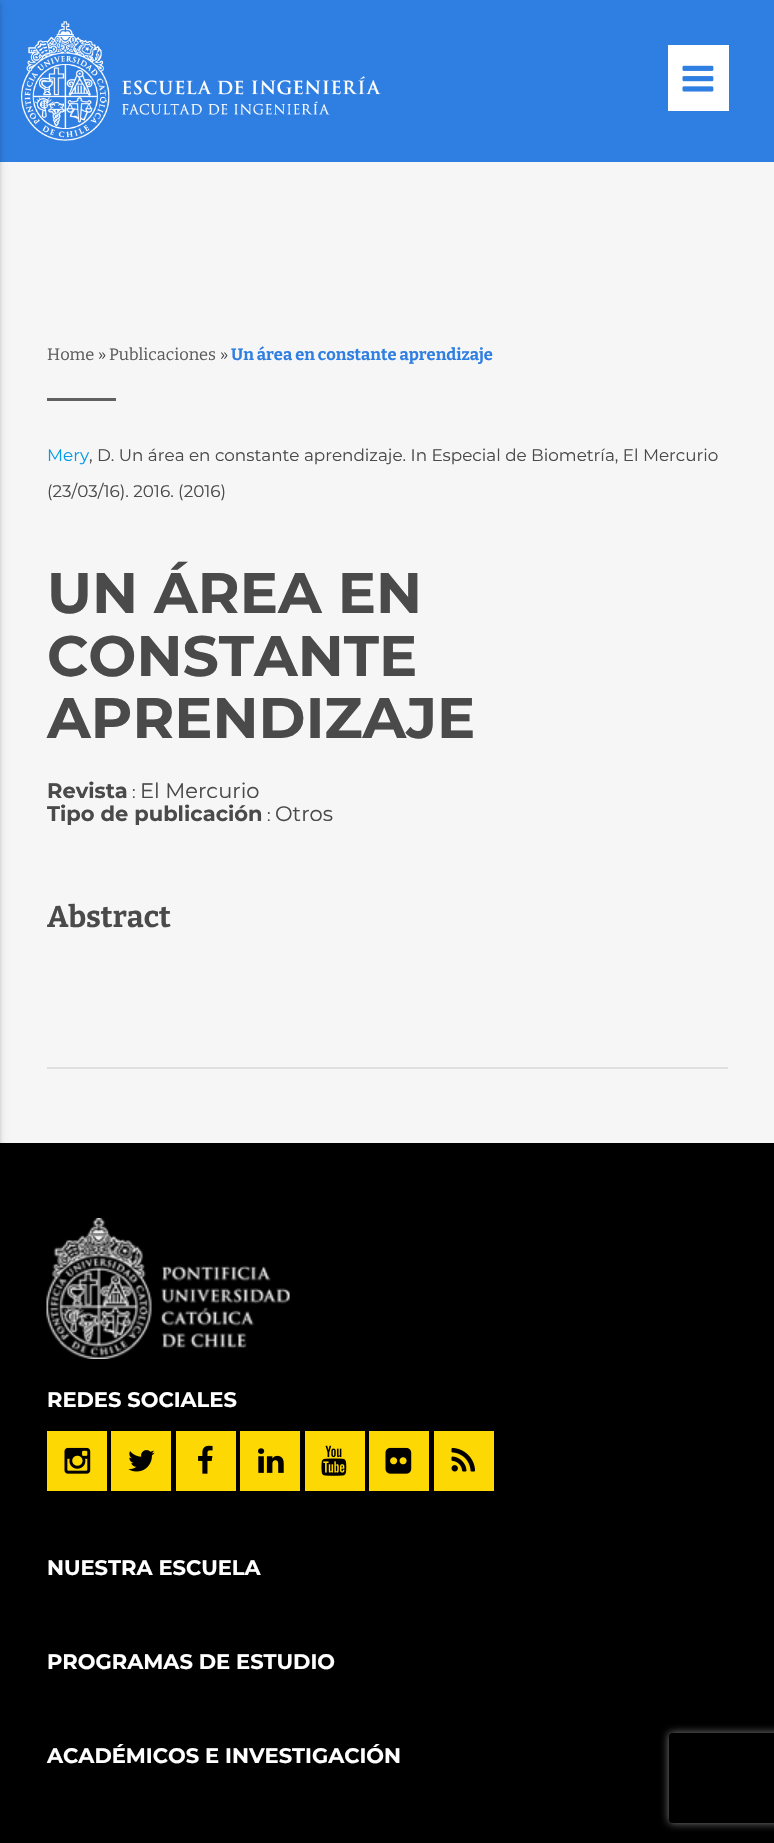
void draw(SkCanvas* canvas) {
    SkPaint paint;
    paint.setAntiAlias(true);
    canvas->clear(0xFFF6F6F7);
    paint.setColor(0xFF2F7EE1);
    canvas->drawRect(SkRect::MakeXYWH(0, 0, 774, 162), paint);
    canvas->drawImageRect(SkImages::DeferredFromEncodedData(SkData::MakeFromFileName("img1.png")), SkRect::MakeXYWH(21, 21, 360, 120), SkSamplingOptions());
    paint.setColor(0xFF000000);
    canvas->drawRect(SkRect::MakeXYWH(0, 1143, 774, 700), paint);
    paint.setColor(0x1F000000);
    paint.setMaskFilter(SkMaskFilter::MakeBlur(kNormal_SkBlurStyle, 4));
    canvas->drawRect(SkRect::MakeXYWH(-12, 2, 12, 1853), paint);
    paint.setMaskFilter(nullptr);
    paint.setColor(0x24000000);
    paint.setMaskFilter(SkMaskFilter::MakeBlur(kNormal_SkBlurStyle, 1.5f));
    canvas->drawRect(SkRect::MakeXYWH(-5, 3, 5, 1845), paint);
    paint.setMaskFilter(nullptr);
    paint.setColor(0xFFFFFFFF);
    canvas->drawRect(SkRect::MakeXYWH(668, 45, 61, 66), paint);
    canvas->drawImageRect(SkImages::DeferredFromEncodedData(SkData::MakeFromFileName("img2.png")), SkRect::MakeXYWH(682, 65, 32, 27), SkSamplingOptions());
    SkFont font1(fontMgr->matchFamilyStyle("Bitter", SkFontStyle::Normal()), 16.5f);
    font1.setSubpixel(true);
    paint.setColor(0xFF5C5C5C);
    canvas->drawString("Home", 47, 360, font1, paint);
    paint.setColor(0xFF4A4A4A);
    canvas->drawString("»", 98, 360, font1, paint);
    paint.setColor(0xFF5C5C5C);
    canvas->drawString("Publicaciones", 109, 360, font1, paint);
    paint.setColor(0xFF4A4A4A);
    canvas->drawString("»", 220, 360, font1, paint);
    SkFont font2(fontMgr->matchFamilyStyle("Bitter", SkFontStyle::Bold()), 16.5f);
    font2.setSubpixel(true);
    paint.setColor(0xFF2F7EE1);
    canvas->drawString("Un área en constante aprendizaje", 231, 360, font2, paint);
    paint.setColor(0xFF616161);
    canvas->drawRect(SkRect::MakeXYWH(47, 398, 69, 3), paint);
    SkFont font3(fontMgr->matchFamilyStyle("Montserrat", SkFontStyle::Normal()), 16.8f);
    font3.setSubpixel(true);
    paint.setColor(0xFF039BE5);
    canvas->drawString("Mery", 47, 461, font3, paint);
    paint.setColor(0xFF4A4A4A);
    canvas->drawString(", D. Un área en constante aprendizaje. In Especial de Biometría, El Mercurio", 89, 461, font3, paint);
    canvas->drawString("(23/03/16). 2016. (2016)", 47, 497, font3, paint);
    SkFont font4(fontMgr->matchFamilyStyle("Montserrat", SkFontStyle::Bold()), 57);
    font4.setSubpixel(true);
    canvas->drawString("UN ÁREA EN", 47, 613, font4, paint);
    canvas->drawString("CONSTANTE", 47, 676, font4, paint);
    canvas->drawString("APRENDIZAJE", 47, 738, font4, paint);
    SkFont font5(fontMgr->matchFamilyStyle("Montserrat", SkFontStyle::Bold()), 21);
    font5.setSubpixel(true);
    canvas->drawString("Revista", 47, 798, font5, paint);
    canvas->drawString(":", 132, 798, font3, paint);
    SkFont font6(fontMgr->matchFamilyStyle("Montserrat", SkFontStyle::Normal()), 21);
    font6.setSubpixel(true);
    canvas->drawString("El Mercurio", 140, 798, font6, paint);
    canvas->drawString("Tipo de publicación", 47, 821, font5, paint);
    canvas->drawString(":", 267, 821, font3, paint);
    canvas->drawString("Otros", 275, 821, font6, paint);
    SkFont font7(fontMgr->matchFamilyStyle("Bitter", SkFontStyle::Bold()), 30);
    font7.setSubpixel(true);
    canvas->drawString("Abstract", 47, 927, font7, paint);
    paint.setColor(0xFFDFDFDF);
    canvas->drawRect(SkRect::MakeXYWH(47, 1067, 681, 2), paint);
    canvas->drawImageRect(SkImages::DeferredFromEncodedData(SkData::MakeFromFileName("img3.png")), SkRect::MakeXYWH(46, 1218, 244, 141), SkSamplingOptions());
    paint.setColor(0xFFFFFFFF);
    canvas->drawString("REDES SOCIALES", 47, 1407, font5, paint);
    paint.setColor(0xFFFED802);
    canvas->drawRect(SkRect::MakeXYWH(47, 1431, 60, 60), paint);
    canvas->drawImageRect(SkImages::DeferredFromEncodedData(SkData::MakeFromFileName("img4.png")), SkRect::MakeXYWH(64, 1447, 27, 27), SkSamplingOptions());
    canvas->drawRect(SkRect::MakeXYWH(111, 1431, 60, 60), paint);
    canvas->drawImageRect(SkImages::DeferredFromEncodedData(SkData::MakeFromFileName("img5.png")), SkRect::MakeXYWH(128, 1450, 27, 22), SkSamplingOptions());
    canvas->drawRect(SkRect::MakeXYWH(176, 1431, 60, 60), paint);
    canvas->drawImageRect(SkImages::DeferredFromEncodedData(SkData::MakeFromFileName("img6.png")), SkRect::MakeXYWH(198, 1445, 15, 29), SkSamplingOptions());
    canvas->drawRect(SkRect::MakeXYWH(240, 1431, 60, 60), paint);
    canvas->drawImageRect(SkImages::DeferredFromEncodedData(SkData::MakeFromFileName("img7.png")), SkRect::MakeXYWH(258, 1448, 26, 25), SkSamplingOptions());
    canvas->drawRect(SkRect::MakeXYWH(305, 1431, 60, 60), paint);
    canvas->drawImageRect(SkImages::DeferredFromEncodedData(SkData::MakeFromFileName("img8.png")), SkRect::MakeXYWH(321, 1445, 26, 31), SkSamplingOptions());
    canvas->drawRect(SkRect::MakeXYWH(369, 1431, 60, 60), paint);
    canvas->drawImageRect(SkImages::DeferredFromEncodedData(SkData::MakeFromFileName("img9.png")), SkRect::MakeXYWH(385, 1447, 27, 27), SkSamplingOptions());
    canvas->drawRect(SkRect::MakeXYWH(434, 1431, 60, 60), paint);
    canvas->drawImageRect(SkImages::DeferredFromEncodedData(SkData::MakeFromFileName("img10.png")), SkRect::MakeXYWH(451, 1447, 25, 25), SkSamplingOptions());
    paint.setColor(0xFFFFFFFF);
    canvas->drawString("NUESTRA ESCUELA", 47, 1575, font5, paint);
    canvas->drawString("PROGRAMAS DE ESTUDIO", 47, 1669, font5, paint);
    canvas->drawString("ACADÉMICOS E INVESTIGACIÓN", 47, 1763, font5, paint);
    canvas->save();
    canvas->clipPath(SkPathBuilder(SkPathFillType::kEvenOdd).moveTo(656, 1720).lineTo(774, 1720).lineTo(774, 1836).lineTo(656, 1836).close().moveTo(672, 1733).lineTo(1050, 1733).cubicTo(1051.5f, 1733, 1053, 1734.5f, 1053, 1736).lineTo(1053, 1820).cubicTo(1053, 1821.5f, 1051.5f, 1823, 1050, 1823).lineTo(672, 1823).cubicTo(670.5f, 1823, 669, 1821.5f, 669, 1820).lineTo(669, 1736).cubicTo(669, 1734.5f, 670.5f, 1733, 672, 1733).close().detach(), true);
    paint.setColor(0xFF808080);
    paint.setMaskFilter(SkMaskFilter::MakeBlur(kNormal_SkBlurStyle, 4));
    canvas->drawRoundRect(SkRect::MakeXYWH(669, 1733, 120, 90), 3, 3, paint);
    paint.setMaskFilter(nullptr);
    canvas->restore();
}
